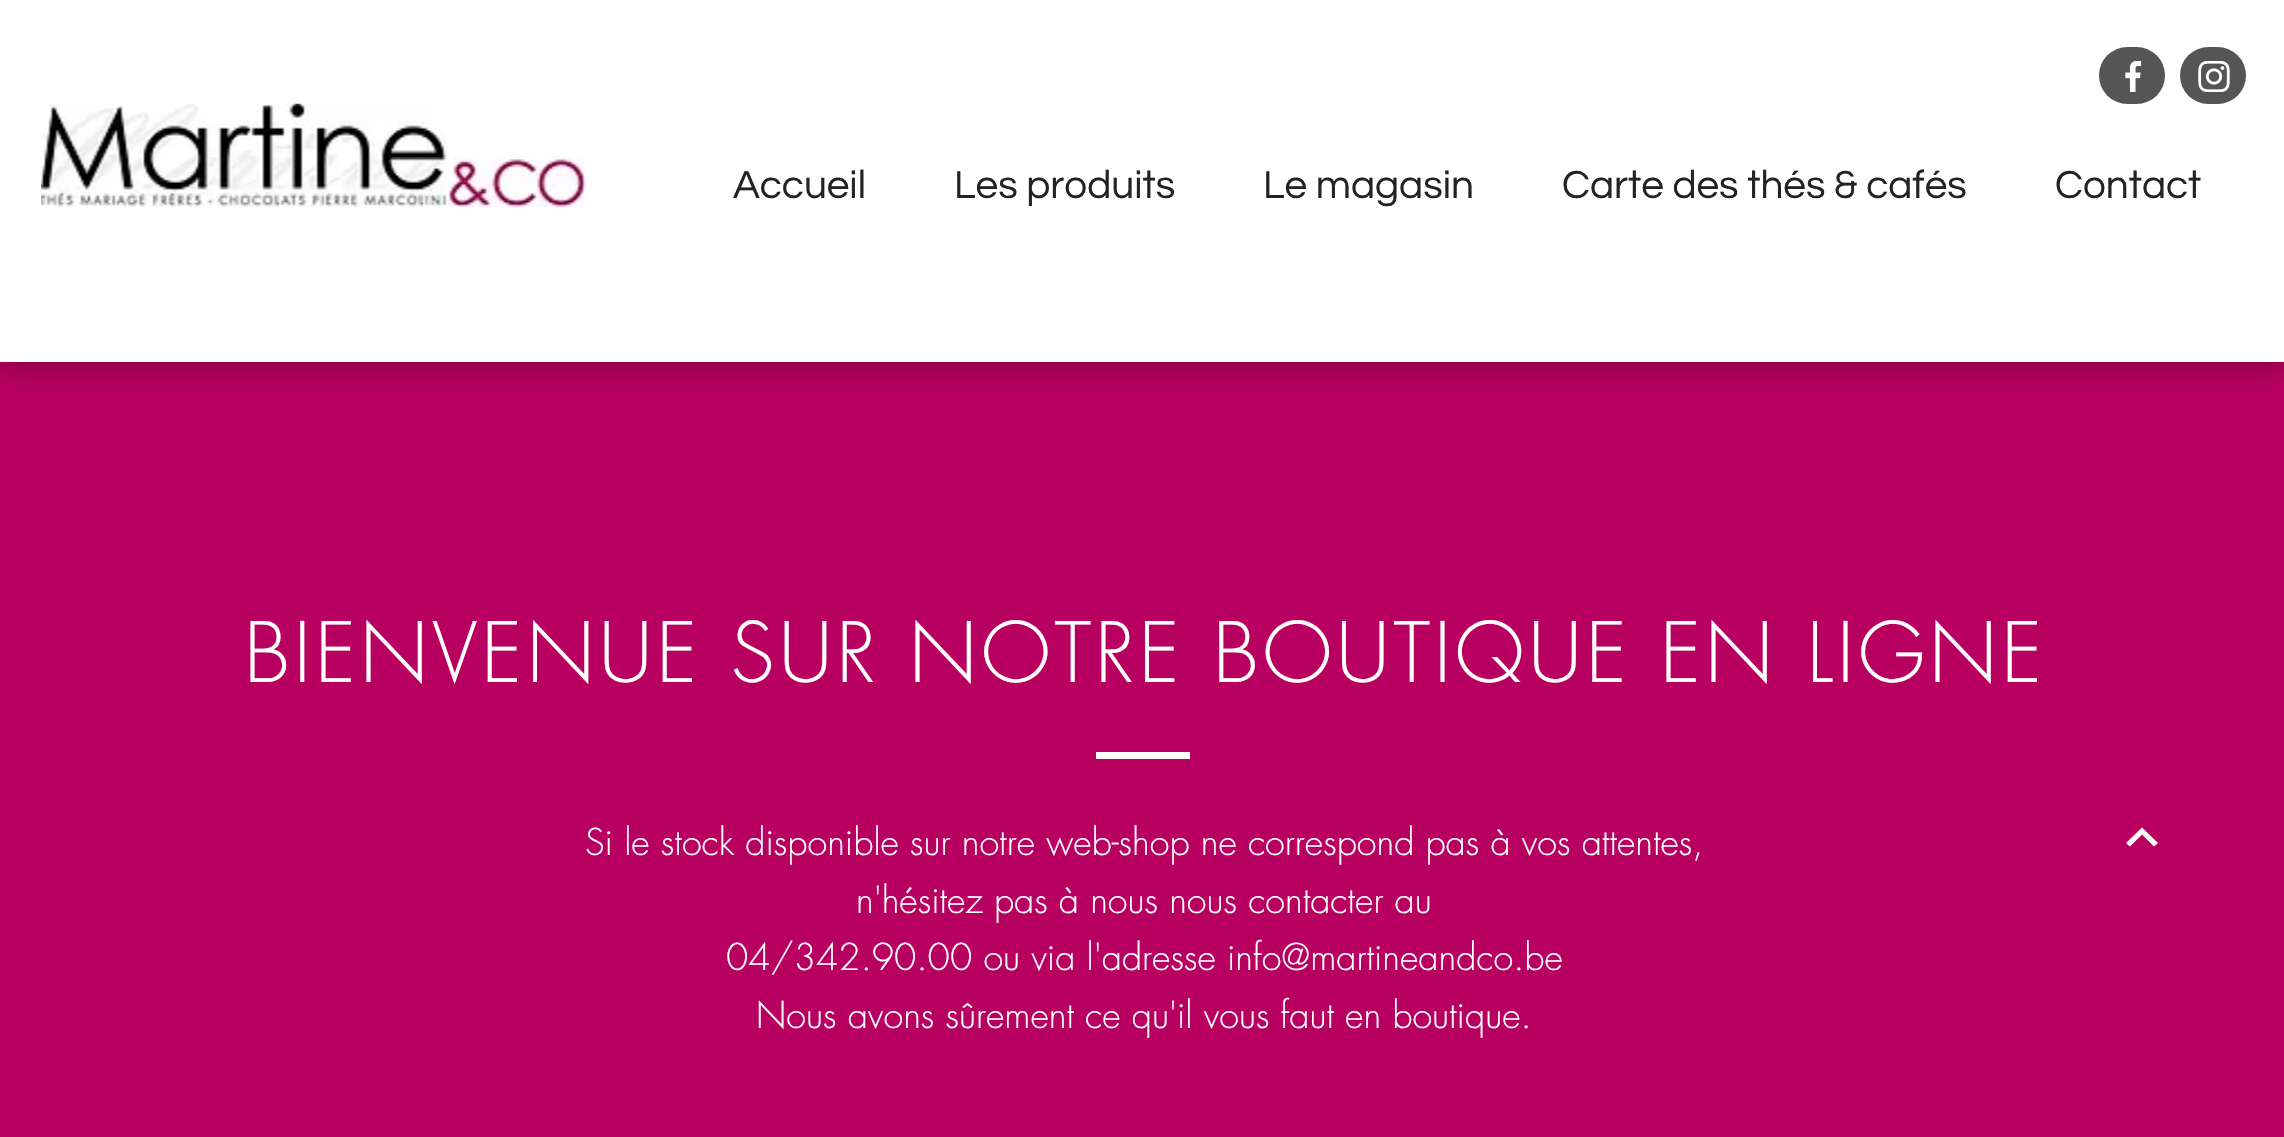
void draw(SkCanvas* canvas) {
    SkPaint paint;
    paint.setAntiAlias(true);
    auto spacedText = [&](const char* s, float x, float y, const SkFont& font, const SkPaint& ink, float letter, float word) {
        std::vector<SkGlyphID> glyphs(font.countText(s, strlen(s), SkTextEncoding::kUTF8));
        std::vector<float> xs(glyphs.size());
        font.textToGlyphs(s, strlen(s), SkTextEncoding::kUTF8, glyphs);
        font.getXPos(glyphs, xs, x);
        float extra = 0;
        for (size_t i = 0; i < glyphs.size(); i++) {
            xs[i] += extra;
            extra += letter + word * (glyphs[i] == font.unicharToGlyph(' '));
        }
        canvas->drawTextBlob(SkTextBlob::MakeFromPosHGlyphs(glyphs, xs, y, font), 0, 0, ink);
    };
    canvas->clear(0xFFB80060);
    paint.setColor(0x66000000);
    paint.setMaskFilter(SkMaskFilter::MakeBlur(kNormal_SkBlurStyle, 16));
    canvas->drawRect(SkRect::MakeXYWH(0, 0, 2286, 362), paint);
    paint.setMaskFilter(nullptr);
    paint.setColor(0xFFFFFFFF);
    canvas->drawRect(SkRect::MakeXYWH(0, 0, 2284, 362), paint);
    paint.setColor(0xFF555555);
    canvas->drawRoundRect(SkRect::MakeXYWH(2099, 47, 66, 57), 28.5f, 28.5f, paint);
    canvas->drawImageRect(SkImages::DeferredFromEncodedData(SkData::MakeFromFileName("img1.png")), SkRect::MakeXYWH(2125, 61, 17, 31), SkSamplingOptions());
    canvas->drawRoundRect(SkRect::MakeXYWH(2180, 47, 66, 57), 28.5f, 28.5f, paint);
    canvas->drawImageRect(SkImages::DeferredFromEncodedData(SkData::MakeFromFileName("img2.png")), SkRect::MakeXYWH(2198, 61, 32, 31), SkSamplingOptions());
    canvas->drawImageRect(SkImages::DeferredFromEncodedData(SkData::MakeFromFileName("img3.png")), SkRect::MakeXYWH(41, 103, 545, 104), SkSamplingOptions());
    SkFont font1(fontMgr->matchFamilyStyle("Questrial", SkFontStyle::Normal()), 40.5f);
    font1.setSubpixel(true);
    paint.setColor(0xFF242323);
    canvas->drawString("Accueil", 733, 198, font1, paint);
    canvas->drawString("Les produits", 954, 198, font1, paint);
    canvas->drawString("Le magasin", 1263, 198, font1, paint);
    canvas->drawString("Carte des thés & cafés", 1562, 198, font1, paint);
    canvas->drawString("Contact", 2055, 198, font1, paint);
    SkFont font2(fontMgr->matchFamilyStyle("futura", SkFontStyle(300, SkFontStyle::kNormal_Width, SkFontStyle::kUpright_Slant)), 81);
    font2.setSubpixel(true);
    paint.setColor(0xFFFFFFFF);
    spacedText("BIENVENUE SUR NOTRE BOUTIQUE EN LIGNE", 244, 682, font2, paint, 4.05f, 0);
    canvas->drawRect(SkRect::MakeXYWH(1096, 752, 94, 7), paint);
    SkFont font3(fontMgr->matchFamilyStyle("futura", SkFontStyle(300, SkFontStyle::kNormal_Width, SkFontStyle::kUpright_Slant)), 36);
    font3.setSubpixel(true);
    canvas->drawString("Si le stock disponible sur notre web-shop ne correspond pas à vos attentes,", 585, 855, font3, paint);
    canvas->drawString("n'hésitez pas à nous nous contacter au", 856, 913, font3, paint);
    canvas->drawString("04/342.90.00 ou via l'adresse info@martineandco.be", 726, 970, font3, paint);
    canvas->drawString("Nous avons sûrement ce qu'il vous faut en boutique.", 756, 1028, font3, paint);
    canvas->drawPath(SkPathBuilder().moveTo(2142, 827.5f).lineTo(2126, 843).lineTo(2130, 846.5f).lineTo(2142, 834.5f).lineTo(2154, 846.5f).lineTo(2158, 843).close().detach(), paint);
}
